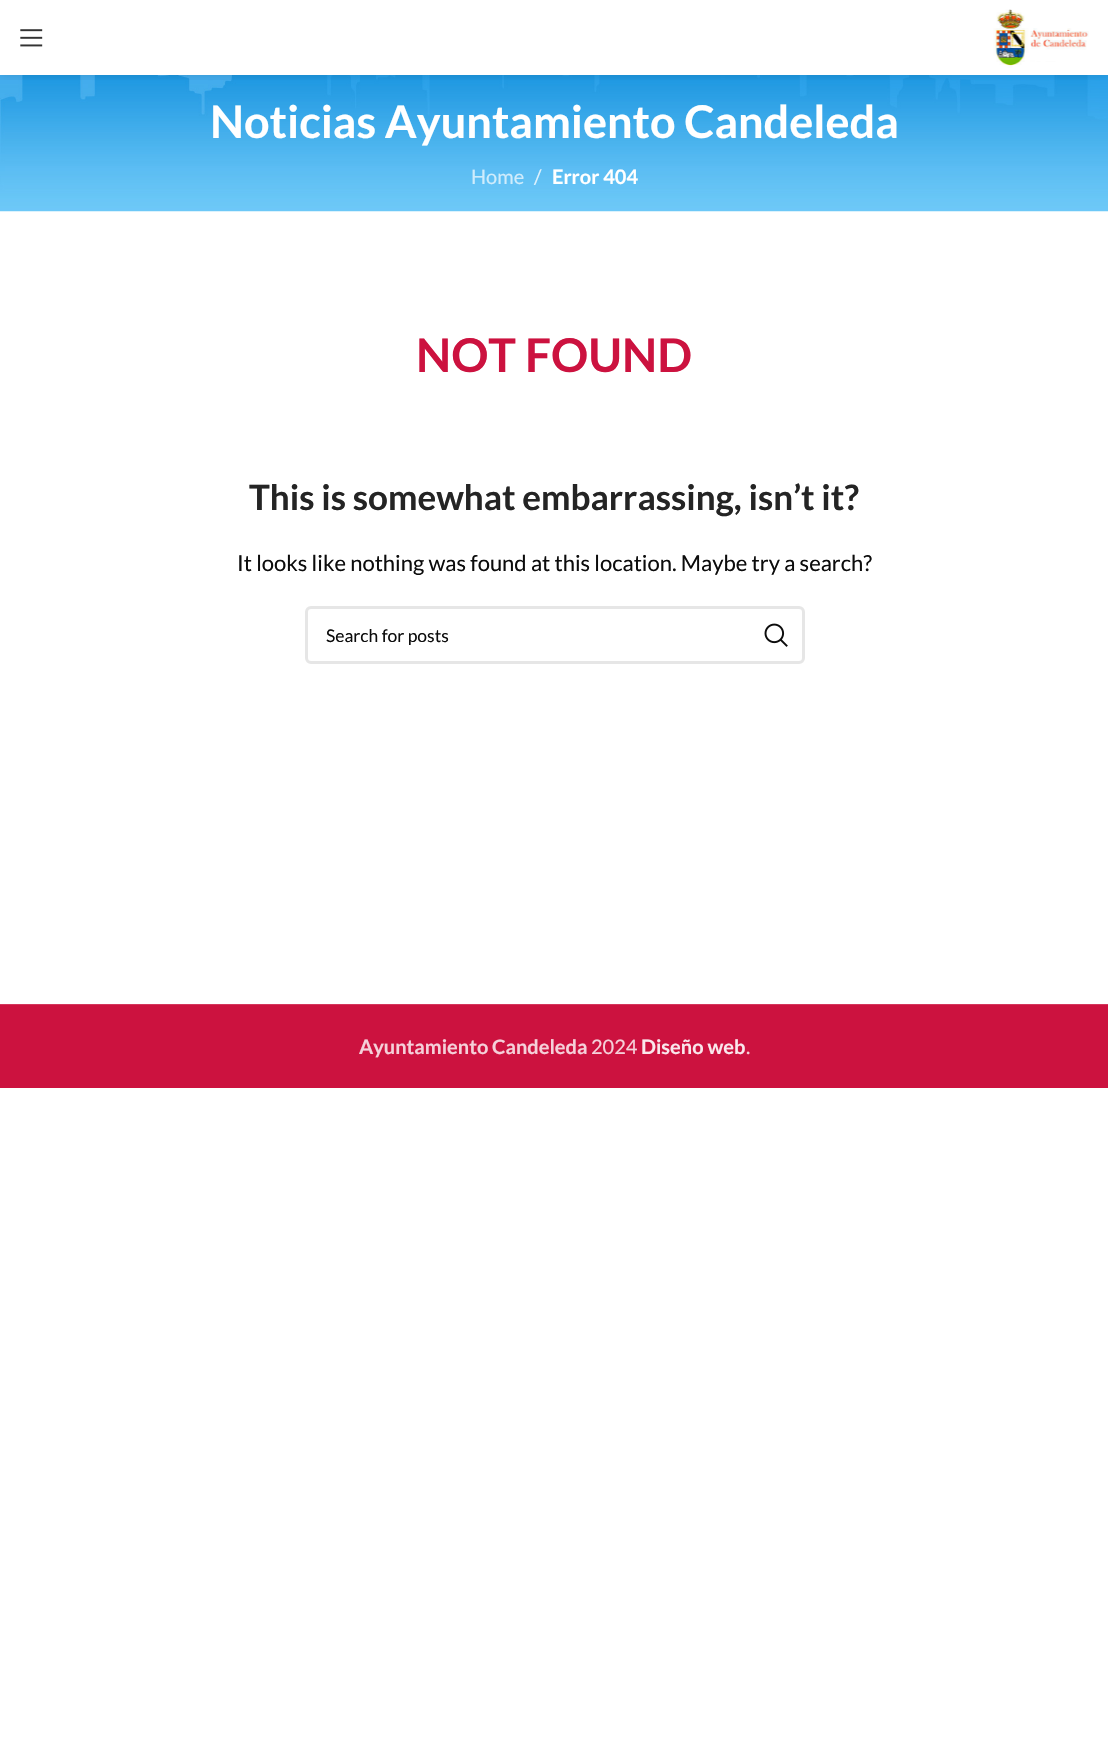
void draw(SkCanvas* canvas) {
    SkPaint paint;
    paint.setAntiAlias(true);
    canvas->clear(0xFFFFFFFF);
    canvas->drawImageRect(SkImages::DeferredFromEncodedData(SkData::MakeFromFileName("img3.png")), SkRect::MakeXYWH(0, 75, 1108, 137), SkSamplingOptions());
    canvas->save();
    canvas->clipRect(SkRect::MakeXYWH(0, 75, 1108, 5));
    paint.setColor(0x1A000000);
    paint.setMaskFilter(SkMaskFilter::MakeBlur(kNormal_SkBlurStyle, 5));
    canvas->drawRect(SkRect::MakeXYWH(0, 1, 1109, 75), paint);
    paint.setMaskFilter(nullptr);
    canvas->restore();
    canvas->drawImageRect(SkImages::DeferredFromEncodedData(SkData::MakeFromFileName("img1.png")), SkRect::MakeXYWH(20, 29, 23, 18), SkSamplingOptions());
    canvas->drawImageRect(SkImages::DeferredFromEncodedData(SkData::MakeFromFileName("img2.png")), SkRect::MakeXYWH(993, 9, 96, 59), SkSamplingOptions());
    SkFont font1(fontMgr->matchFamilyStyle("Lato", SkFontStyle::Bold()), 45);
    font1.setSubpixel(true);
    paint.setColor(0xFFFFFFFF);
    canvas->drawString("Noticias Ayuntamiento Candeleda", 210, 138, font1, paint);
    SkFont font2(fontMgr->matchFamilyStyle("Lato", SkFontStyle::Normal()), 20);
    font2.setSubpixel(true);
    paint.setColor(0xFFCFECFC);
    canvas->drawString("Home", 471, 184, font2, paint);
    paint.setColor(0xFFDFF2FD);
    canvas->drawString("/", 534, 184, font2, paint);
    SkFont font3(fontMgr->matchFamilyStyle("Lato", SkFontStyle::Bold()), 20);
    font3.setSubpixel(true);
    paint.setColor(0xFFFFFFFF);
    canvas->drawString("Error 404", 552, 184, font3, paint);
    SkFont font4(fontMgr->matchFamilyStyle("Lato", SkFontStyle::Bold()), 46.5f);
    font4.setSubpixel(true);
    paint.setColor(0xFFCC123F);
    canvas->drawString("NOT FOUND", 416, 372, font4, paint);
    SkFont font5(fontMgr->matchFamilyStyle("Lato", SkFontStyle::Bold()), 35);
    font5.setSubpixel(true);
    paint.setColor(0xFF242424);
    canvas->drawString("This is somewhat embarrassing, isn’t it?", 249, 510, font5, paint);
    SkFont font6(fontMgr->matchFamilyStyle("Lato", SkFontStyle::Normal()), 22);
    font6.setSubpixel(true);
    paint.setColor(0xFF0C0C0C);
    canvas->drawString("It looks like nothing was found at this location. Maybe try a search?", 237, 571, font6, paint);
    paint.setStyle(SkPaint::kStroke_Style);
    paint.setStrokeWidth(3);
    paint.setColor(0xFFE6E6E6);
    canvas->drawRoundRect(SkRect::MakeXYWH(306.5f, 607.5f, 497, 55), 4.5f, 4.5f, paint);
    SkFont font7(fontMgr->matchFamilyStyle("Lato", SkFontStyle::Normal()), 17.5f);
    font7.setSubpixel(true);
    paint.setStyle(SkPaint::kFill_Style);
    paint.setColor(0xFF0C0C0C);
    canvas->drawString("Search for posts", 326, 642, font7, paint);
    canvas->drawImageRect(SkImages::DeferredFromEncodedData(SkData::MakeFromFileName("img4.png")), SkRect::MakeXYWH(764, 623, 24, 24), SkSamplingOptions());
    paint.setColor(0xFFCC123F);
    canvas->drawRect(SkRect::MakeXYWH(0, 1005, 1108, 83), paint);
    paint.setColor(0xFFD4365C);
    canvas->drawRect(SkRect::MakeXYWH(0, 1004, 1108, 1), paint);
    paint.setColor(0xFFF5D0D9);
    canvas->drawString("Ayuntamiento Candeleda", 359, 1054, font3, paint);
    canvas->drawString("2024", 591, 1054, font2, paint);
    paint.setColor(0xFFFAE7EC);
    canvas->drawString("Diseño web", 641, 1054, font3, paint);
    paint.setColor(0xFFF5D0D9);
    canvas->drawString(".", 746, 1054, font2, paint);
}
